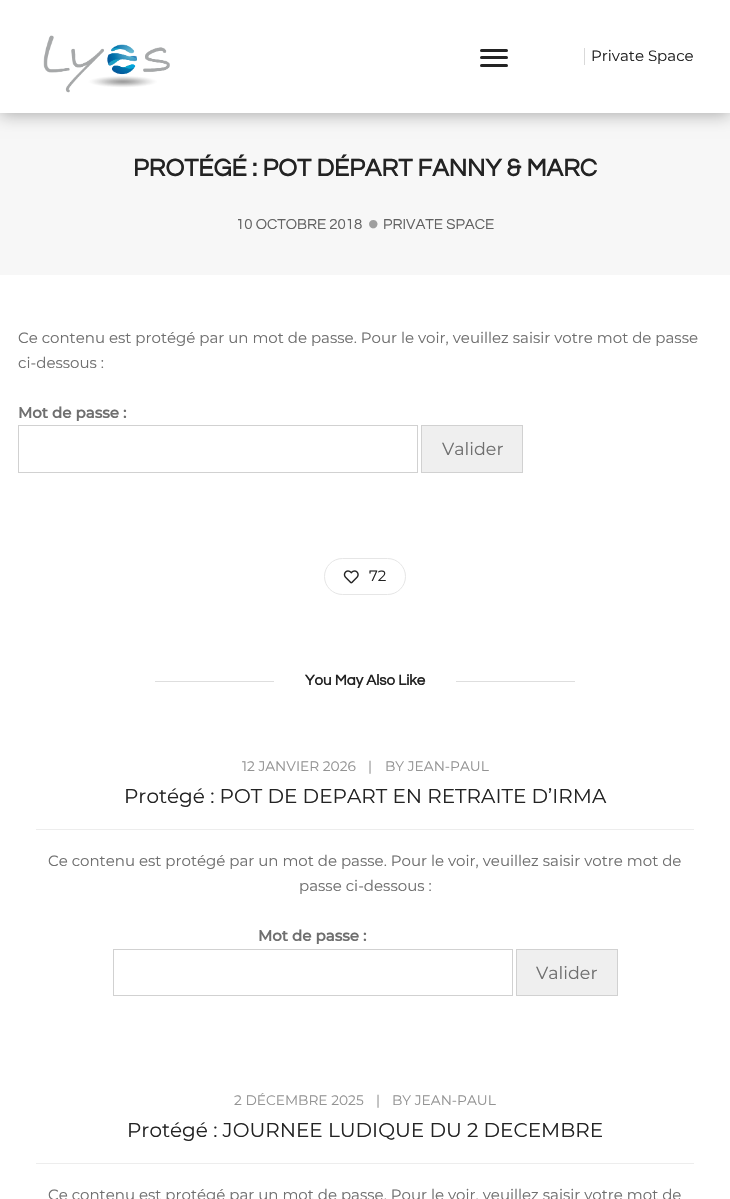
void draw(SkCanvas* canvas) {
    SkPaint paint;
    paint.setAntiAlias(true);
    canvas->clear(0xFFFFFFFF);
    paint.setColor(0xFFF7F7F7);
    canvas->drawRect(SkRect::MakeXYWH(0, 113, 730, 162), paint);
    paint.setColor(0x4D000000);
    paint.setMaskFilter(SkMaskFilter::MakeBlur(kNormal_SkBlurStyle, 8));
    canvas->drawRect(SkRect::MakeXYWH(0, 3, 730, 112), paint);
    paint.setMaskFilter(nullptr);
    paint.setColor(0xFFFFFFFF);
    canvas->drawRect(SkRect::MakeXYWH(0, 0, 730, 113), paint);
    canvas->drawImageRect(SkImages::DeferredFromEncodedData(SkData::MakeFromFileName("img1.png")), SkRect::MakeXYWH(43, 35, 127, 58), SkSamplingOptions());
    paint.setColor(0xFF232323);
    canvas->drawRoundRect(SkRect::MakeXYWH(480, 49, 28, 3), 1.5f, 1.5f, paint);
    canvas->drawRoundRect(SkRect::MakeXYWH(480, 56, 28, 3), 1.5f, 1.5f, paint);
    canvas->drawRoundRect(SkRect::MakeXYWH(480, 64, 28, 3), 1.5f, 1.5f, paint);
    paint.setColor(0xFFD9D9D9);
    canvas->drawRect(SkRect::MakeXYWH(584, 48, 1, 17), paint);
    SkFont font1(fontMgr->matchFamilyStyle("Montserrat", SkFontStyle::Normal()), 15);
    font1.setSubpixel(true);
    paint.setColor(0xFF232323);
    canvas->drawString("Private Space", 591, 61, font1, paint);
    SkFont font2(fontMgr->matchFamilyStyle("Questrial", SkFontStyle::Bold()), 25);
    font2.setSubpixel(true);
    canvas->drawString("PROTÉGÉ : POT DÉPART FANNY & MARC", 133, 176, font2, paint);
    SkFont font3(fontMgr->matchFamilyStyle("Questrial", SkFontStyle::Normal()), 15);
    font3.setSubpixel(true);
    paint.setColor(0xFF626262);
    canvas->drawString("10 OCTOBRE 2018", 236, 229, font3, paint);
    SkFont font4(fontMgr->matchFamilyStyle("Questrial", SkFontStyle::Normal()), 31);
    font4.setSubpixel(true);
    paint.setColor(0xFF9E9E9E);
    canvas->drawString("•", 368, 234, font4, paint);
    paint.setColor(0xFF626262);
    canvas->drawString("PRIVATE SPACE", 383, 229, font3, paint);
    paint.setColor(0xFF6F6F6F);
    canvas->drawString("Ce contenu est protégé par un mot de passe. Pour le voir, veuillez saisir votre mot de passe", 18, 343, font1, paint);
    canvas->drawString("ci-dessous :", 18, 368, font1, paint);
    SkFont font5(fontMgr->matchFamilyStyle("Montserrat", SkFontStyle::Bold()), 15);
    font5.setSubpixel(true);
    canvas->drawString("Mot de passe :", 18, 418, font5, paint);
    paint.setStyle(SkPaint::kStroke_Style);
    paint.setStrokeWidth(1);
    paint.setColor(0xFFD1D1D1);
    canvas->drawRect(SkRect::MakeXYWH(18.5f, 425.5f, 399, 47), paint);
    paint.setStyle(SkPaint::kFill_Style);
    paint.setColor(0xFFEFEFEF);
    canvas->drawRect(SkRect::MakeXYWH(421.5f, 425.5f, 101, 47), paint);
    paint.setStyle(SkPaint::kStroke_Style);
    paint.setColor(0xFFD1D1D1);
    canvas->drawRect(SkRect::MakeXYWH(421.5f, 425.5f, 101, 47), paint);
    SkFont font6(fontMgr->matchFamilyStyle("Montserrat", SkFontStyle::Normal()), 17.5f);
    font6.setSubpixel(true);
    paint.setStyle(SkPaint::kFill_Style);
    paint.setColor(0xFF6F6F6F);
    canvas->drawString("Valider", 442, 455, font6, paint);
    paint.setStyle(SkPaint::kStroke_Style);
    paint.setColor(0xFFE6E6E6);
    canvas->drawRoundRect(SkRect::MakeXYWH(324.5f, 558.5f, 81, 36), 18, 18, paint);
    canvas->drawImageRect(SkImages::DeferredFromEncodedData(SkData::MakeFromFileName("img2.png")), SkRect::MakeXYWH(343, 570, 16, 14), SkSamplingOptions());
    paint.setStyle(SkPaint::kFill_Style);
    paint.setColor(0xFF232323);
    canvas->drawString("72", 369, 581, font1, paint);
    paint.setColor(0xFFDEDEDE);
    canvas->drawRect(SkRect::MakeXYWH(155, 681, 119, 1), paint);
    SkFont font7(fontMgr->matchFamilyStyle("Questrial", SkFontStyle::Bold()), 15);
    font7.setSubpixel(true);
    paint.setColor(0xFF232323);
    canvas->drawString("You May Also Like", 305, 685, font7, paint);
    paint.setColor(0xFFDEDEDE);
    canvas->drawRect(SkRect::MakeXYWH(456, 681, 119, 1), paint);
    SkFont font8(fontMgr->matchFamilyStyle("Montserrat", SkFontStyle::Normal()), 13.75f);
    font8.setSubpixel(true);
    paint.setColor(0xFF939393);
    canvas->drawString("12 JANVIER 2026", 242, 771, font8, paint);
    canvas->drawString("|", 368, 771, font8, paint);
    canvas->drawString("BY JEAN-PAUL", 385, 771, font8, paint);
    SkFont font9(fontMgr->matchFamilyStyle("Montserrat", SkFontStyle::Normal()), 20);
    font9.setSubpixel(true);
    paint.setColor(0xFF232323);
    canvas->drawString("Protégé : POT DE DEPART EN RETRAITE D’IRMA", 124, 803, font9, paint);
    paint.setColor(0xFFEDEDED);
    canvas->drawRect(SkRect::MakeXYWH(36, 829, 658, 1), paint);
    paint.setColor(0xFF6F6F6F);
    canvas->drawString("Ce contenu est protégé par un mot de passe. Pour le voir, veuillez saisir votre mot de", 48, 866, font1, paint);
    canvas->drawString("passe ci-dessous :", 299, 891, font1, paint);
    canvas->drawString("Mot de passe :", 258, 941, font5, paint);
    paint.setStyle(SkPaint::kStroke_Style);
    paint.setColor(0xFFD1D1D1);
    canvas->drawRect(SkRect::MakeXYWH(113.5f, 949.5f, 399, 46), paint);
    paint.setStyle(SkPaint::kFill_Style);
    paint.setColor(0xFFEFEFEF);
    canvas->drawRect(SkRect::MakeXYWH(516.5f, 949.5f, 101, 46), paint);
    paint.setStyle(SkPaint::kStroke_Style);
    paint.setColor(0xFFD1D1D1);
    canvas->drawRect(SkRect::MakeXYWH(516.5f, 949.5f, 101, 46), paint);
    paint.setStyle(SkPaint::kFill_Style);
    paint.setColor(0xFF6F6F6F);
    canvas->drawString("Valider", 536, 979, font6, paint);
    paint.setColor(0xFF939393);
    canvas->drawString("2 DÉCEMBRE 2025", 234, 1105, font8, paint);
    canvas->drawString("|", 376, 1105, font8, paint);
    canvas->drawString("BY JEAN-PAUL", 392, 1105, font8, paint);
    paint.setColor(0xFF232323);
    canvas->drawString("Protégé : JOURNEE LUDIQUE DU 2 DECEMBRE", 127, 1137, font9, paint);
    paint.setColor(0xFFEDEDED);
    canvas->drawRect(SkRect::MakeXYWH(36, 1163, 658, 1), paint);
    paint.setColor(0xFF6F6F6F);
    canvas->drawString("Ce contenu est protégé par un mot de passe. Pour le voir, veuillez saisir votre mot de", 48, 1200, font1, paint);
}
